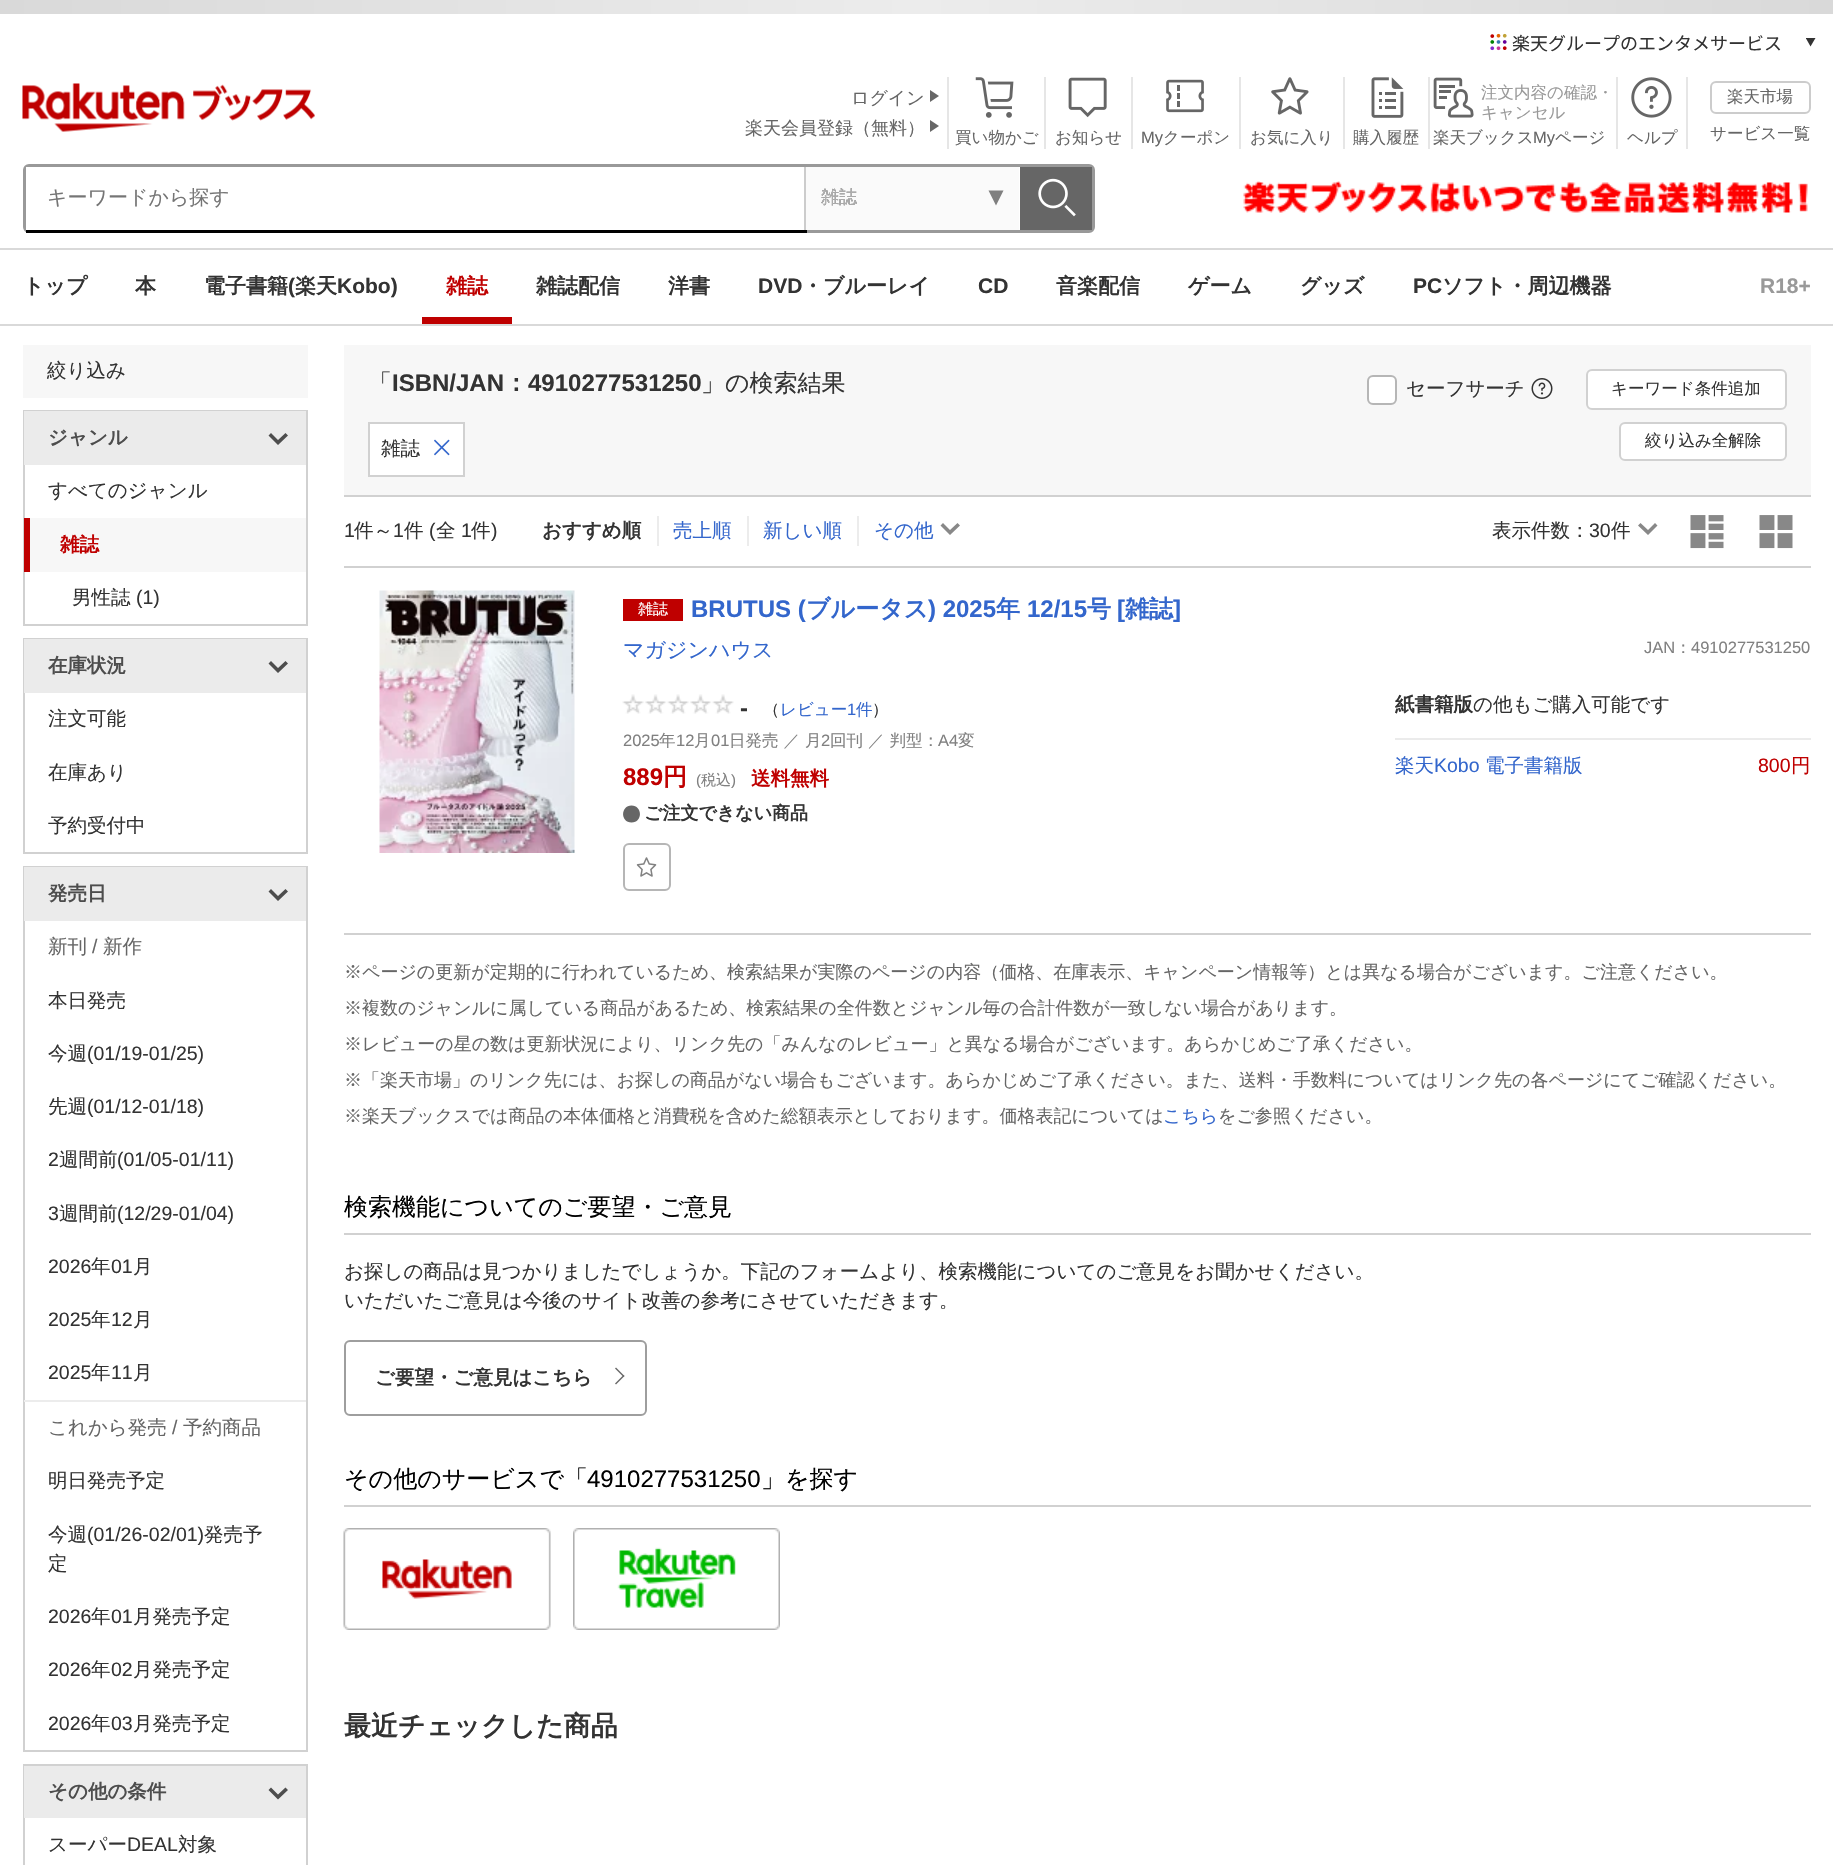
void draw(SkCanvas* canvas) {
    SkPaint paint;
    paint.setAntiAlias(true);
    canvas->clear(0xFFFFFFFF);
    {
        const SkColor colors[] = {0xFFD9D9D9, 0xFFECECEC, 0xFFD9D9D9};
        const float stops[] = {0, 0.5f, 1};
        const SkPoint ends[] = {{0, -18}, {1833, -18}};
        paint.setShader(SkGradientShader::MakeLinear(ends, colors, stops, 3, SkTileMode::kClamp));
        paint.setAlpha(255);
    }
    canvas->drawRect(SkRect::MakeXYWH(0, 0, 1833, 14), paint);
    canvas->drawImageRect(SkImages::DeferredFromEncodedData(SkData::MakeFromFileName("img1.png")), SkRect::MakeXYWH(1490, 33, 17, 18), SkSamplingOptions());
    SkFont font1(fontMgr->matchFamilyStyle("Noto Sans JP", SkFontStyle::Normal()), 18);
    font1.setSubpixel(true);
    paint.setShader(nullptr);
    paint.setColor(0xFF333333);
    canvas->drawString("楽天グループのエンタメサービス", 1512, 50, font1, paint);
    canvas->drawPath(SkPathBuilder().moveTo(1806, 38).lineTo(1815.5f, 38).lineTo(1810.5f, 46.5f).lineTo(1806, 38.5f).close().detach(), paint);
    paint.setColor(0xFFD9D9D9);
    canvas->drawRect(SkRect::MakeXYWH(0, 324, 1833, 2), paint);
    canvas->drawImageRect(SkImages::DeferredFromEncodedData(SkData::MakeFromFileName("img2.png")), SkRect::MakeXYWH(22, 83, 293, 49), SkSamplingOptions());
    SkFont font2(fontMgr->matchFamilyStyle("WenQuanYi Zen Hei", SkFontStyle(500, SkFontStyle::kNormal_Width, SkFontStyle::kUpright_Slant)), 18);
    font2.setSubpixel(true);
    paint.setColor(0xFF666666);
    canvas->drawString("ログイン", 851, 104, font2, paint);
    canvas->drawPath(SkPathBuilder().moveTo(930, 102).lineTo(930, 90).lineTo(939, 96).close().detach(), paint);
    canvas->drawString("楽天会員登録（無料）", 745, 134, font2, paint);
    canvas->drawPath(SkPathBuilder().moveTo(930, 132).lineTo(930, 120).lineTo(939, 126).close().detach(), paint);
    paint.setColor(0xFFE6E6E6);
    canvas->drawRect(SkRect::MakeXYWH(947, 77, 2, 72), paint);
    canvas->drawImageRect(SkImages::DeferredFromEncodedData(SkData::MakeFromFileName("img3.png")), SkRect::MakeXYWH(975, 77, 39, 41), SkSamplingOptions());
    SkFont font3(fontMgr->matchFamilyStyle("WenQuanYi Zen Hei", SkFontStyle(500, SkFontStyle::kNormal_Width, SkFontStyle::kUpright_Slant)), 16.5f);
    font3.setSubpixel(true);
    paint.setColor(0xFF666666);
    canvas->drawString("買い物かご", 955, 143, font3, paint);
    paint.setColor(0xFFE6E6E6);
    canvas->drawRect(SkRect::MakeXYWH(1044, 77, 2, 72), paint);
    canvas->drawImageRect(SkImages::DeferredFromEncodedData(SkData::MakeFromFileName("img4.png")), SkRect::MakeXYWH(1068, 77, 39, 41), SkSamplingOptions());
    paint.setColor(0xFF666666);
    canvas->drawString("お知らせ", 1055, 143, font3, paint);
    paint.setColor(0xFFE6E6E6);
    canvas->drawRect(SkRect::MakeXYWH(1131, 77, 2, 72), paint);
    canvas->drawImageRect(SkImages::DeferredFromEncodedData(SkData::MakeFromFileName("img5.png")), SkRect::MakeXYWH(1166, 79, 38, 34), SkSamplingOptions());
    SkFont font4(fontMgr->matchFamilyStyle("Liberation Sans", SkFontStyle::Normal()), 16.5f);
    font4.setSubpixel(true);
    paint.setColor(0xFF666666);
    canvas->drawString("My", 1141, 143, font4, paint);
    canvas->drawString("クーポン", 1163, 143, font3, paint);
    paint.setColor(0xFFE6E6E6);
    canvas->drawRect(SkRect::MakeXYWH(1239, 77, 2, 72), paint);
    canvas->drawImageRect(SkImages::DeferredFromEncodedData(SkData::MakeFromFileName("img6.png")), SkRect::MakeXYWH(1271, 77, 38, 38), SkSamplingOptions());
    paint.setColor(0xFF666666);
    canvas->drawString("お気に入り", 1250, 143, font3, paint);
    paint.setColor(0xFFE6E6E6);
    canvas->drawRect(SkRect::MakeXYWH(1343, 77, 2, 72), paint);
    canvas->drawImageRect(SkImages::DeferredFromEncodedData(SkData::MakeFromFileName("img7.png")), SkRect::MakeXYWH(1371, 77, 33, 41), SkSamplingOptions());
    paint.setColor(0xFF666666);
    canvas->drawString("購入履歴", 1353, 143, font3, paint);
    paint.setColor(0xFFE6E6E6);
    canvas->drawRect(SkRect::MakeXYWH(1428, 77, 2, 72), paint);
    canvas->drawImageRect(SkImages::DeferredFromEncodedData(SkData::MakeFromFileName("img8.png")), SkRect::MakeXYWH(1433, 77, 41, 41), SkSamplingOptions());
    paint.setColor(0xFF999999);
    canvas->drawString("注文内容の確認・", 1481, 98, font3, paint);
    canvas->drawString("キャンセル", 1481, 118, font3, paint);
    paint.setColor(0xFF666666);
    canvas->drawString("楽天ブックス", 1433, 143, font3, paint);
    canvas->drawString("My", 1533, 143, font4, paint);
    canvas->drawString("ページ", 1555, 143, font3, paint);
    paint.setColor(0xFFE6E6E6);
    canvas->drawRect(SkRect::MakeXYWH(1616, 77, 2, 72), paint);
    canvas->drawImageRect(SkImages::DeferredFromEncodedData(SkData::MakeFromFileName("img9.png")), SkRect::MakeXYWH(1631, 77, 41, 41), SkSamplingOptions());
    paint.setColor(0xFF666666);
    canvas->drawString("ヘルプ", 1627, 143, font3, paint);
    paint.setColor(0xFFE6E6E6);
    canvas->drawRect(SkRect::MakeXYWH(1686, 77, 2, 72), paint);
    paint.setStyle(SkPaint::kStroke_Style);
    paint.setStrokeWidth(2);
    paint.setColor(0xFFCCCCCC);
    canvas->drawRoundRect(SkRect::MakeXYWH(1711, 82, 99, 31), 5, 5, paint);
    paint.setStyle(SkPaint::kFill_Style);
    paint.setColor(0xFF666666);
    canvas->drawString("楽天市場", 1727, 102, font3, paint);
    canvas->drawString("サービス一覧", 1710, 139, font3, paint);
    paint.setStyle(SkPaint::kStroke_Style);
    paint.setStrokeWidth(3);
    paint.setColor(0xFF999999);
    canvas->drawRoundRect(SkRect::MakeXYWH(24.5f, 165.5f, 1069, 66), 4.5f, 4.5f, paint);
    paint.setStyle(SkPaint::kFill_Style);
    paint.setColor(0xFFFFFFFF);
    canvas->drawRect(SkRect::MakeXYWH(26, 167, 3, 63), paint);
    SkFont font5(fontMgr->matchFamilyStyle("WenQuanYi Zen Hei", SkFontStyle(500, SkFontStyle::kNormal_Width, SkFontStyle::kUpright_Slant)), 20);
    font5.setSubpixel(true);
    paint.setColor(0xFF757575);
    canvas->drawString("キーワードから探す", 47, 204, font5, paint);
    paint.setColor(0xFF000000);
    canvas->drawRect(SkRect::MakeXYWH(26, 230, 781, 3), paint);
    paint.setColor(0xFFFAFAFA);
    canvas->drawRect(SkRect::MakeXYWH(806, 167, 213, 63), paint);
    paint.setColor(0xFFCCCCCC);
    canvas->drawRect(SkRect::MakeXYWH(804, 167, 2, 63), paint);
    paint.setColor(0xFF666666);
    canvas->drawString("雑誌", 821, 203, font2, paint);
    paint.setColor(0xFF7F7F7F);
    canvas->drawPath(SkPathBuilder().moveTo(988.5f, 190.5f).lineTo(1003.5f, 190.5f).lineTo(996, 205.5f).close().detach(), paint);
    paint.setColor(0xFF666666);
    canvas->drawRect(SkRect::MakeXYWH(1020, 167, 72, 63), paint);
    canvas->drawImageRect(SkImages::DeferredFromEncodedData(SkData::MakeFromFileName("img10.png")), SkRect::MakeXYWH(1038, 178, 38, 39), SkSamplingOptions());
    paint.setColor(0xFFB1B1B1);
    canvas->drawString("雑誌", 821, 203, font2, paint);
    canvas->drawImageRect(SkImages::DeferredFromEncodedData(SkData::MakeFromFileName("img11.png")), SkRect::MakeXYWH(1243, 181, 565, 33), SkSamplingOptions());
    paint.setColor(0xFFD9D9D9);
    canvas->drawRect(SkRect::MakeXYWH(0, 248, 1833, 2), paint);
    SkFont font6(fontMgr->matchFamilyStyle("WenQuanYi Zen Hei", SkFontStyle::Bold()), 21);
    font6.setSubpixel(true);
    paint.setColor(0xFF333333);
    canvas->drawString("トップ", 23, 293, font6, paint);
    canvas->drawString("本", 135, 293, font6, paint);
    canvas->drawString("電子書籍", 204, 293, font6, paint);
    SkFont font7(fontMgr->matchFamilyStyle("Liberation Sans", SkFontStyle::Bold()), 21);
    font7.setSubpixel(true);
    canvas->drawString("(", 288, 293, font7, paint);
    canvas->drawString("楽天", 295, 293, font6, paint);
    canvas->drawString("Kobo)", 337, 293, font7, paint);
    paint.setColor(0xFFBF0000);
    canvas->drawString("雑誌", 446, 293, font6, paint);
    canvas->drawRect(SkRect::MakeXYWH(422, 317, 90, 7), paint);
    paint.setColor(0xFF333333);
    canvas->drawString("雑誌配信", 536, 293, font6, paint);
    canvas->drawString("洋書", 668, 293, font6, paint);
    canvas->drawString("DVD", 758, 293, font7, paint);
    canvas->drawString("・ブルーレイ", 802, 293, font6, paint);
    canvas->drawString("CD", 978, 293, font7, paint);
    canvas->drawString("音楽配信", 1056, 293, font6, paint);
    canvas->drawString("ゲーム", 1188, 293, font6, paint);
    canvas->drawString("グッズ", 1300, 293, font6, paint);
    canvas->drawString("PC", 1413, 293, font7, paint);
    canvas->drawString("ソフト・周辺機器", 1442, 293, font6, paint);
    paint.setColor(0xFF999999);
    canvas->drawString("R18+", 1760, 293, font7, paint);
    paint.setColor(0xFFF7F7F7);
    canvas->drawRect(SkRect::MakeXYWH(23, 345, 285, 53), paint);
    SkFont font8(fontMgr->matchFamilyStyle("WenQuanYi Zen Hei", SkFontStyle(500, SkFontStyle::kNormal_Width, SkFontStyle::kUpright_Slant)), 19.5f);
    font8.setSubpixel(true);
    paint.setColor(0xFF333333);
    canvas->drawString("絞り込み", 47, 377, font8, paint);
    paint.setStyle(SkPaint::kStroke_Style);
    paint.setStrokeWidth(2);
    paint.setColor(0xFFD1D1D1);
    canvas->drawRect(SkRect::MakeXYWH(24, 411, 283, 214), paint);
    paint.setStyle(SkPaint::kFill_Style);
    paint.setColor(0xFFEBEBEB);
    canvas->drawRect(SkRect::MakeXYWH(24, 411, 282, 54), paint);
    SkFont font9(fontMgr->matchFamilyStyle("WenQuanYi Zen Hei", SkFontStyle::Bold()), 19.5f);
    font9.setSubpixel(true);
    paint.setColor(0xFF4D4D4D);
    canvas->drawString("ジャンル", 48, 444, font9, paint);
    canvas->drawPath(SkPathBuilder().moveTo(278, 445).lineTo(268.5f, 435.5f).lineTo(271, 433).lineTo(278, 440).lineTo(285.5f, 433).lineTo(288, 435.5f).close().detach(), paint);
    paint.setColor(0xFF333333);
    canvas->drawString("すべてのジャンル", 48, 497, font8, paint);
    paint.setColor(0xFFF7F7F7);
    canvas->drawRect(SkRect::MakeXYWH(30, 518, 276, 54), paint);
    paint.setColor(0xFFBF0000);
    canvas->drawRect(SkRect::MakeXYWH(24, 518, 6, 54), paint);
    canvas->drawString("雑誌", 60, 551, font9, paint);
    paint.setColor(0xFF333333);
    canvas->drawString("男性誌", 72, 604, font8, paint);
    SkFont font10(fontMgr->matchFamilyStyle("Liberation Sans", SkFontStyle::Normal()), 19.5f);
    font10.setSubpixel(true);
    canvas->drawString("(1)", 136, 604, font10, paint);
    paint.setStyle(SkPaint::kStroke_Style);
    paint.setColor(0xFFD1D1D1);
    canvas->drawRect(SkRect::MakeXYWH(24, 639, 283, 214), paint);
    paint.setStyle(SkPaint::kFill_Style);
    paint.setColor(0xFFEBEBEB);
    canvas->drawRect(SkRect::MakeXYWH(24, 639, 282, 54), paint);
    paint.setColor(0xFF4D4D4D);
    canvas->drawString("在庫状況", 48, 672, font9, paint);
    canvas->drawPath(SkPathBuilder().moveTo(278, 673).lineTo(268.5f, 663.5f).lineTo(271, 661).lineTo(278, 668).lineTo(285.5f, 661).lineTo(288, 663.5f).close().detach(), paint);
    paint.setColor(0xFF333333);
    canvas->drawString("注文可能", 48, 725, font8, paint);
    canvas->drawString("在庫あり", 48, 779, font8, paint);
    canvas->drawString("予約受付中", 48, 832, font8, paint);
    paint.setStyle(SkPaint::kStroke_Style);
    paint.setColor(0xFFD1D1D1);
    canvas->drawRect(SkRect::MakeXYWH(24, 867, 283, 884), paint);
    paint.setStyle(SkPaint::kFill_Style);
    paint.setColor(0xFFEBEBEB);
    canvas->drawRect(SkRect::MakeXYWH(24, 867, 282, 54), paint);
    paint.setColor(0xFF4D4D4D);
    canvas->drawString("発売日", 48, 900, font9, paint);
    canvas->drawPath(SkPathBuilder().moveTo(278, 901).lineTo(268.5f, 891.5f).lineTo(271, 889).lineTo(278, 896).lineTo(285.5f, 889).lineTo(288, 891.5f).close().detach(), paint);
    paint.setColor(0xFF666666);
    canvas->drawString("新刊", 48, 953, font8, paint);
    canvas->drawString("/", 92, 953, font10, paint);
    canvas->drawString("新作", 103, 953, font8, paint);
    paint.setColor(0xFFECECEC);
    canvas->drawRect(SkRect::MakeXYWH(24, 1400, 282, 2), paint);
    paint.setColor(0xFF333333);
    canvas->drawString("本日発売", 48, 1007, font8, paint);
    canvas->drawString("今週", 48, 1060, font8, paint);
    canvas->drawString("(01/19-01/25)", 87, 1060, font10, paint);
    canvas->drawString("先週", 48, 1113, font8, paint);
    canvas->drawString("(01/12-01/18)", 87, 1113, font10, paint);
    canvas->drawString("2", 48, 1166, font10, paint);
    canvas->drawString("週間前", 59, 1166, font8, paint);
    canvas->drawString("(01/05-01/11)", 117, 1166, font10, paint);
    canvas->drawString("3", 48, 1220, font10, paint);
    canvas->drawString("週間前", 59, 1220, font8, paint);
    canvas->drawString("(12/29-01/04)", 117, 1220, font10, paint);
    canvas->drawString("2026", 48, 1273, font10, paint);
    canvas->drawString("年", 91, 1273, font8, paint);
    canvas->drawString("01", 111, 1273, font10, paint);
    canvas->drawString("月", 133, 1273, font8, paint);
    canvas->drawString("2025", 48, 1326, font10, paint);
    canvas->drawString("年", 91, 1326, font8, paint);
    canvas->drawString("12", 111, 1326, font10, paint);
    canvas->drawString("月", 133, 1326, font8, paint);
    canvas->drawString("2025", 48, 1379, font10, paint);
    canvas->drawString("年", 91, 1379, font8, paint);
    canvas->drawString("11", 111, 1379, font10, paint);
    canvas->drawString("月", 133, 1379, font8, paint);
    paint.setColor(0xFF666666);
    canvas->drawString("これから発売", 48, 1434, font8, paint);
    canvas->drawString("/", 172, 1434, font10, paint);
    canvas->drawString("予約商品", 183, 1434, font8, paint);
    paint.setColor(0xFF333333);
    canvas->drawString("明日発売予定", 48, 1487, font8, paint);
    canvas->drawString("今週", 48, 1541, font8, paint);
    canvas->drawString("(01/26-02/01)", 87, 1541, font10, paint);
    canvas->drawString("発売予", 204, 1541, font8, paint);
    canvas->drawString("定", 48, 1570, font8, paint);
    canvas->drawString("2026", 48, 1623, font10, paint);
    canvas->drawString("年", 91, 1623, font8, paint);
    canvas->drawString("01", 111, 1623, font10, paint);
    canvas->drawString("月発売予定", 133, 1623, font8, paint);
    canvas->drawString("2026", 48, 1676, font10, paint);
    canvas->drawString("年", 91, 1676, font8, paint);
    canvas->drawString("02", 111, 1676, font10, paint);
    canvas->drawString("月発売予定", 133, 1676, font8, paint);
    canvas->drawString("2026", 48, 1730, font10, paint);
    canvas->drawString("年", 91, 1730, font8, paint);
    canvas->drawString("03", 111, 1730, font10, paint);
    canvas->drawString("月発売予定", 133, 1730, font8, paint);
    paint.setStyle(SkPaint::kStroke_Style);
    paint.setColor(0xFFD1D1D1);
    canvas->drawRect(SkRect::MakeXYWH(24, 1765, 283, 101), paint);
    paint.setStyle(SkPaint::kFill_Style);
    paint.setColor(0xFFEBEBEB);
    canvas->drawRect(SkRect::MakeXYWH(24, 1766, 282, 52), paint);
    paint.setColor(0xFF4D4D4D);
    canvas->drawString("その他の条件", 48, 1798, font9, paint);
    canvas->drawPath(SkPathBuilder().moveTo(278, 1799.5f).lineTo(268.5f, 1790).lineTo(271, 1787.5f).lineTo(278, 1794.5f).lineTo(285.5f, 1787.5f).lineTo(288, 1790).close().detach(), paint);
    paint.setColor(0xFF333333);
    canvas->drawString("スーパー", 48, 1851, font8, paint);
    canvas->drawString("DEAL", 127, 1851, font10, paint);
    canvas->drawString("対象", 178, 1851, font8, paint);
    paint.setColor(0xFFF7F7F7);
    canvas->drawRect(SkRect::MakeXYWH(344, 345, 1467, 150), paint);
    SkFont font11(fontMgr->matchFamilyStyle("WenQuanYi Zen Hei", SkFontStyle(500, SkFontStyle::kNormal_Width, SkFontStyle::kUpright_Slant)), 24);
    font11.setSubpixel(true);
    paint.setColor(0xFF333333);
    canvas->drawString("「", 368, 391, font11, paint);
    SkFont font12(fontMgr->matchFamilyStyle("Liberation Sans", SkFontStyle::Bold()), 24);
    font12.setSubpixel(true);
    canvas->drawString("ISBN/JAN", 392, 391, font12, paint);
    SkFont font13(fontMgr->matchFamilyStyle("WenQuanYi Zen Hei", SkFontStyle::Bold()), 24);
    font13.setSubpixel(true);
    canvas->drawString("：", 504, 391, font13, paint);
    canvas->drawString("4910277531250", 528, 391, font12, paint);
    canvas->drawString("」の検索結果", 701, 391, font11, paint);
    paint.setColor(0xFFFFFFFF);
    canvas->drawRoundRect(SkRect::MakeXYWH(1368, 376, 28, 28), 5, 5, paint);
    paint.setStyle(SkPaint::kStroke_Style);
    paint.setColor(0xFFB6B6B6);
    canvas->drawRoundRect(SkRect::MakeXYWH(1368, 376, 28, 28), 5, 5, paint);
    paint.setStyle(SkPaint::kFill_Style);
    paint.setColor(0xFF333333);
    canvas->drawString("セーフサーチ", 1406, 395, font8, paint);
    canvas->drawImageRect(SkImages::DeferredFromEncodedData(SkData::MakeFromFileName("img12.png")), SkRect::MakeXYWH(1531, 378, 22, 21), SkSamplingOptions());
    paint.setColor(0xFFFFFFFF);
    canvas->drawRoundRect(SkRect::MakeXYWH(1587, 370, 199, 39), 5, 5, paint);
    paint.setStyle(SkPaint::kStroke_Style);
    paint.setColor(0xFFD1D1D1);
    canvas->drawRoundRect(SkRect::MakeXYWH(1587, 370, 199, 39), 5, 5, paint);
    paint.setStyle(SkPaint::kFill_Style);
    paint.setColor(0xFF333333);
    canvas->drawString("キーワード条件追加", 1611, 394, font3, paint);
    paint.setColor(0xFFFFFFFF);
    canvas->drawRect(SkRect::MakeXYWH(369, 423, 95, 53), paint);
    paint.setStyle(SkPaint::kStroke_Style);
    paint.setColor(0xFFD1D1D1);
    canvas->drawRect(SkRect::MakeXYWH(369, 423, 95, 53), paint);
    paint.setStyle(SkPaint::kFill_Style);
    paint.setColor(0xFF333333);
    canvas->drawString("雑誌", 381, 455, font8, paint);
    canvas->drawImageRect(SkImages::DeferredFromEncodedData(SkData::MakeFromFileName("img13.png")), SkRect::MakeXYWH(434, 439, 16, 17), SkSamplingOptions());
    paint.setColor(0xFFFFFFFF);
    canvas->drawRoundRect(SkRect::MakeXYWH(1620, 423, 166, 37), 5, 5, paint);
    paint.setStyle(SkPaint::kStroke_Style);
    paint.setColor(0xFFD1D1D1);
    canvas->drawRoundRect(SkRect::MakeXYWH(1620, 423, 166, 37), 5, 5, paint);
    paint.setStyle(SkPaint::kFill_Style);
    paint.setColor(0xFF333333);
    canvas->drawString("絞り込み全解除", 1645, 446, font3, paint);
    paint.setColor(0xFFD1D1D1);
    canvas->drawRect(SkRect::MakeXYWH(344, 495, 1467, 2), paint);
    canvas->drawRect(SkRect::MakeXYWH(344, 566, 1467, 2), paint);
    paint.setColor(0xFF333333);
    canvas->drawString("1", 344, 537, font10, paint);
    canvas->drawString("件～", 354, 537, font8, paint);
    canvas->drawString("1", 393, 537, font10, paint);
    canvas->drawString("件", 404, 537, font8, paint);
    canvas->drawString("(", 429, 537, font10, paint);
    canvas->drawString("全", 436, 537, font8, paint);
    canvas->drawString("1", 461, 537, font10, paint);
    canvas->drawString("件", 471, 537, font8, paint);
    canvas->drawString(")", 491, 537, font10, paint);
    paint.setColor(0xFFECECEC);
    canvas->drawRect(SkRect::MakeXYWH(657, 516, 2, 30), paint);
    paint.setColor(0xFF333333);
    canvas->drawString("おすすめ順", 542, 537, font9, paint);
    paint.setColor(0xFFECECEC);
    canvas->drawRect(SkRect::MakeXYWH(747, 516, 2, 30), paint);
    paint.setColor(0xFF3366CC);
    canvas->drawString("売上順", 673, 537, font8, paint);
    paint.setColor(0xFFECECEC);
    canvas->drawRect(SkRect::MakeXYWH(857, 516, 2, 30), paint);
    paint.setColor(0xFF3366CC);
    canvas->drawString("新しい順", 763, 537, font8, paint);
    canvas->drawString("その他", 874, 537, font8, paint);
    paint.setColor(0xFF888888);
    canvas->drawPath(SkPathBuilder().moveTo(950, 535).lineTo(940.5f, 525.5f).lineTo(943, 523).lineTo(950, 530).lineTo(957.5f, 523).lineTo(960, 525.5f).close().detach(), paint);
    paint.setColor(0xFF333333);
    canvas->drawString("表示件数：", 1492, 537, font8, paint);
    canvas->drawString("30", 1589, 537, font10, paint);
    canvas->drawString("件", 1611, 537, font8, paint);
    paint.setColor(0xFF888888);
    canvas->drawPath(SkPathBuilder().moveTo(1648, 535).lineTo(1638, 525.5f).lineTo(1640.5f, 523).lineTo(1648, 530).lineTo(1655, 523).lineTo(1657.5f, 525.5f).close().detach(), paint);
    canvas->drawImageRect(SkImages::DeferredFromEncodedData(SkData::MakeFromFileName("img14.png")), SkRect::MakeXYWH(1690, 515, 34, 34), SkSamplingOptions());
    canvas->drawImageRect(SkImages::DeferredFromEncodedData(SkData::MakeFromFileName("img15.png")), SkRect::MakeXYWH(1759, 515, 34, 34), SkSamplingOptions());
    paint.setColor(0xFFD1D1D1);
    canvas->drawRect(SkRect::MakeXYWH(344, 933, 1467, 2), paint);
    canvas->drawImageRect(SkImages::DeferredFromEncodedData(SkData::MakeFromFileName("img16.png")), SkRect::MakeXYWH(379, 590, 196, 263), SkSamplingOptions());
    paint.setColor(0xFFBF0000);
    canvas->drawRect(SkRect::MakeXYWH(623, 599, 60, 22), paint);
    SkFont font14(fontMgr->matchFamilyStyle("WenQuanYi Zen Hei", SkFontStyle(500, SkFontStyle::kNormal_Width, SkFontStyle::kUpright_Slant)), 15);
    font14.setSubpixel(true);
    paint.setColor(0xFFFFFFFF);
    canvas->drawString("雑誌", 638, 614, font14, paint);
    paint.setColor(0xFF3366CC);
    canvas->drawString("BRUTUS (", 691, 617, font12, paint);
    canvas->drawString("ブルータス", 806, 617, font13, paint);
    canvas->drawString(") 2025", 928, 617, font12, paint);
    canvas->drawString("年", 996, 617, font13, paint);
    canvas->drawString("12/15", 1027, 617, font12, paint);
    canvas->drawString("号", 1087, 617, font13, paint);
    canvas->drawString("[", 1117, 617, font12, paint);
    canvas->drawString("雑誌", 1125, 617, font13, paint);
    canvas->drawString("]", 1173, 617, font12, paint);
    SkFont font15(fontMgr->matchFamilyStyle("WenQuanYi Zen Hei", SkFontStyle(500, SkFontStyle::kNormal_Width, SkFontStyle::kUpright_Slant)), 21);
    font15.setSubpixel(true);
    canvas->drawString("マガジンハウス", 623, 657, font15, paint);
    paint.setColor(0xFF808080);
    canvas->drawString("JAN", 1644, 653, font4, paint);
    canvas->drawString("：", 1675, 653, font3, paint);
    canvas->drawString("4910277531250", 1691, 653, font4, paint);
    canvas->drawImageRect(SkImages::DeferredFromEncodedData(SkData::MakeFromFileName("img17.png")), SkRect::MakeXYWH(622, 694, 112, 20), SkSamplingOptions());
    paint.setColor(0xFF333333);
    canvas->drawString("-", 740, 716, font12, paint);
    canvas->drawString("（", 763, 715, font3, paint);
    paint.setColor(0xFF3366CC);
    canvas->drawString("レビュー", 780, 715, font3, paint);
    canvas->drawString("1", 847, 715, font4, paint);
    canvas->drawString("件", 856, 715, font3, paint);
    paint.setColor(0xFF333333);
    canvas->drawString("）", 872, 715, font3, paint);
    paint.setColor(0xFF808080);
    canvas->drawString("2025", 623, 746, font4, paint);
    canvas->drawString("年", 659, 746, font3, paint);
    canvas->drawString("12", 676, 746, font4, paint);
    canvas->drawString("月", 694, 746, font3, paint);
    canvas->drawString("01", 711, 746, font4, paint);
    canvas->drawString("日発売 ／ 月", 729, 746, font3, paint);
    canvas->drawString("2", 821, 746, font4, paint);
    canvas->drawString("回刊 ／ 判型：", 830, 746, font3, paint);
    canvas->drawString("A4", 938, 746, font4, paint);
    canvas->drawString("変", 958, 746, font3, paint);
    paint.setColor(0xFFBF0000);
    canvas->drawString("889", 623, 785, font12, paint);
    canvas->drawString("円", 663, 785, font13, paint);
    SkFont font16(fontMgr->matchFamilyStyle("Liberation Sans", SkFontStyle::Normal()), 15);
    font16.setSubpixel(true);
    paint.setColor(0xFF808080);
    canvas->drawString("(", 696, 785, font16, paint);
    canvas->drawString("税込", 701, 785, font14, paint);
    canvas->drawString(")", 731, 785, font16, paint);
    paint.setColor(0xFFBF0000);
    canvas->drawString("送料無料", 751, 785, font9, paint);
    paint.setColor(0xFF666666);
    canvas->drawPath(SkPathBuilder().moveTo(631.5f, 805.5f).cubicTo(620.5f, 805.5f, 620, 822.5f, 631.5f, 822.5f).cubicTo(643, 822.5f, 642.5f, 805.5f, 631.5f, 805.5f).close().detach(), paint);
    SkFont font17(fontMgr->matchFamilyStyle("WenQuanYi Zen Hei", SkFontStyle::Bold()), 18);
    font17.setSubpixel(true);
    paint.setColor(0xFF333333);
    canvas->drawString("ご注文できない商品", 644, 819, font17, paint);
    paint.setStyle(SkPaint::kStroke_Style);
    paint.setColor(0xFFB6B6B6);
    canvas->drawRoundRect(SkRect::MakeXYWH(624, 844, 46, 46), 5, 5, paint);
    canvas->drawImageRect(SkImages::DeferredFromEncodedData(SkData::MakeFromFileName("img18.png")), SkRect::MakeXYWH(636, 857, 21, 20), SkSamplingOptions());
    paint.setStyle(SkPaint::kFill_Style);
    paint.setColor(0xFF333333);
    canvas->drawString("紙書籍版", 1395, 711, font9, paint);
    canvas->drawString("の他もご購入可能です", 1473, 711, font8, paint);
    paint.setColor(0xFFEBEBEB);
    canvas->drawRect(SkRect::MakeXYWH(1395, 738, 416, 2), paint);
    paint.setColor(0xFF3366CC);
    canvas->drawString("楽天", 1395, 772, font8, paint);
    canvas->drawString("Kobo", 1434, 772, font10, paint);
    canvas->drawString("電子書籍版", 1485, 772, font8, paint);
    paint.setColor(0xFFBF0000);
    canvas->drawString("800", 1758, 772, font10, paint);
    canvas->drawString("円", 1791, 772, font8, paint);
    paint.setColor(0xFF666666);
    canvas->drawString("※ページの更新が定期的に行われているため、検索結果が実際のページの内容（価格、在庫表示、キャンペーン情報等）とは異なる場合がございます。ご注意ください。", 344, 978, font2, paint);
    canvas->drawString("※複数のジャンルに属している商品があるため、検索結果の全件数とジャンル毎の合計件数が一致しない場合があります。", 344, 1014, font2, paint);
    canvas->drawString("※レビューの星の数は更新状況により、リンク先の「みんなのレビュー」と異なる場合がございます。あらかじめご了承ください。", 344, 1050, font2, paint);
    canvas->drawString("※「楽天市場」のリンク先には、お探しの商品がない場合もございます。あらかじめご了承ください。また、送料・手数料についてはリンク先の各ページにてご確認ください。", 344, 1086, font2, paint);
    canvas->drawString("※楽天ブックスでは商品の本体価格と消費税を含めた総額表示としております。価格表記については", 344, 1122, font2, paint);
    paint.setColor(0xFF3366CC);
    canvas->drawString("こちら", 1163, 1122, font2, paint);
    paint.setColor(0xFF666666);
    canvas->drawString("をご参照ください。", 1218, 1122, font2, paint);
    paint.setColor(0xFFD1D1D1);
    canvas->drawRect(SkRect::MakeXYWH(344, 1233, 1467, 2), paint);
    paint.setColor(0xFF000000);
    canvas->drawString("検索機能についてのご要望・ご意見", 344, 1215, font11, paint);
    paint.setColor(0xFF333333);
    canvas->drawString("お探しの商品は見つかりましたでしょうか。下記のフォームより、検索機能についてのご意見をお聞かせください。", 344, 1278, font8, paint);
    canvas->drawString("いただいたご意見は今後のサイト改善の参考にさせていただきます。", 344, 1307, font8, paint);
    paint.setStyle(SkPaint::kStroke_Style);
    paint.setColor(0xFF9E9E9E);
    canvas->drawRoundRect(SkRect::MakeXYWH(345, 1341, 301, 74), 5, 5, paint);
    paint.setStyle(SkPaint::kFill_Style);
    paint.setColor(0xFF333333);
    canvas->drawString("ご要望・ご意見はこちら", 375, 1384, font9, paint);
    paint.setColor(0xFF686868);
    canvas->drawPath(SkPathBuilder().moveTo(623.5f, 1377).lineTo(615, 1368.5f).lineTo(616, 1367.5f).lineTo(624.5f, 1376).close().detach(), paint);
    canvas->drawPath(SkPathBuilder().moveTo(616, 1384.5f).lineTo(615, 1383.5f).lineTo(623.5f, 1375).lineTo(624.5f, 1376).close().detach(), paint);
    paint.setColor(0xFFD1D1D1);
    canvas->drawRect(SkRect::MakeXYWH(344, 1505, 1467, 2), paint);
    paint.setColor(0xFF000000);
    canvas->drawString("その他のサービスで「", 344, 1487, font11, paint);
    SkFont font18(fontMgr->matchFamilyStyle("Liberation Sans", SkFontStyle::Normal()), 24);
    font18.setSubpixel(true);
    canvas->drawString("4910277531250", 587, 1487, font18, paint);
    canvas->drawString("」を探す", 761, 1487, font11, paint);
    canvas->drawImageRect(SkImages::DeferredFromEncodedData(SkData::MakeFromFileName("img19.png")), SkRect::MakeXYWH(343, 1528, 208, 102), SkSamplingOptions());
    canvas->drawImageRect(SkImages::DeferredFromEncodedData(SkData::MakeFromFileName("img20.png")), SkRect::MakeXYWH(573, 1528, 207, 102), SkSamplingOptions());
    SkFont font19(fontMgr->matchFamilyStyle("WenQuanYi Zen Hei", SkFontStyle::Bold()), 27);
    font19.setSubpixel(true);
    paint.setColor(0xFF333333);
    canvas->drawString("最近チェックした商品", 344, 1735, font19, paint);
}
